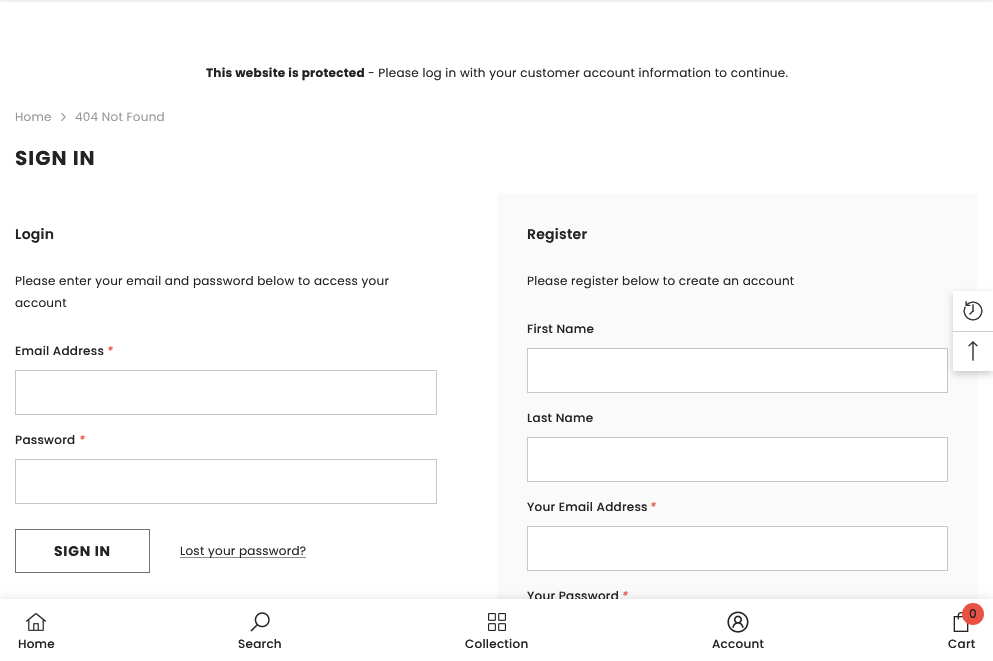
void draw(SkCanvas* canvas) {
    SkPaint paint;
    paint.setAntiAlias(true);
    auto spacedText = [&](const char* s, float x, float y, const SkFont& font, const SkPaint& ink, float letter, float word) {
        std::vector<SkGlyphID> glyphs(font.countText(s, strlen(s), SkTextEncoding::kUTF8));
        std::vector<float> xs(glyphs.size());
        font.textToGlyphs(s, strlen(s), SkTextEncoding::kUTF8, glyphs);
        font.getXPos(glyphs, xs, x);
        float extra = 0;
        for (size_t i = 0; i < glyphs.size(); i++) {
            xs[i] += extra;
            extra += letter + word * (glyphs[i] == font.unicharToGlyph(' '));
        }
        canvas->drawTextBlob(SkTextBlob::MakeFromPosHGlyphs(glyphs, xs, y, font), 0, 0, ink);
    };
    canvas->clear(0xFFFFFFFF);
    paint.setColor(0x1A000000);
    paint.setMaskFilter(SkMaskFilter::MakeBlur(kNormal_SkBlurStyle, 1.5f));
    canvas->drawRect(SkRect::MakeXYWH(0, -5, 993, 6), paint);
    paint.setMaskFilter(nullptr);
    SkFont font1(fontMgr->matchFamilyStyle("Poppins", SkFontStyle::Bold()), 12);
    font1.setSubpixel(true);
    paint.setColor(0xFF232323);
    spacedText("This website is protected", 206, 77, font1, paint, 0.25f, 0);
    SkFont font2(fontMgr->matchFamilyStyle("Poppins", SkFontStyle::Normal()), 12);
    font2.setSubpixel(true);
    spacedText("- Please log in with your customer account information to continue.", 368, 77, font2, paint, 0.25f, 0);
    paint.setColor(0xFF999999);
    spacedText("Home", 15, 121, font2, paint, 0.25f, 0);
    canvas->drawImageRect(SkImages::DeferredFromEncodedData(SkData::MakeFromFileName("img1.png")), SkRect::MakeXYWH(61, 112, 5, 10), SkSamplingOptions());
    spacedText("404 Not Found", 75, 121, font2, paint, 0.25f, 0);
    SkFont font3(fontMgr->matchFamilyStyle("Poppins", SkFontStyle::Bold()), 20);
    font3.setSubpixel(true);
    paint.setColor(0xFF232323);
    spacedText("SIGN IN", 15, 165, font3, paint, 1, 0);
    SkFont font4(fontMgr->matchFamilyStyle("Poppins", SkFontStyle(600, SkFontStyle::kNormal_Width, SkFontStyle::kUpright_Slant)), 14);
    font4.setSubpixel(true);
    spacedText("Login", 15, 239, font4, paint, 0.25f, 0);
    spacedText("Please enter your email and password below to access your", 15, 285, font2, paint, 0.25f, 0);
    spacedText("account", 15, 307, font2, paint, 0.25f, 0);
    SkFont font5(fontMgr->matchFamilyStyle("Poppins", SkFontStyle(500, SkFontStyle::kNormal_Width, SkFontStyle::kUpright_Slant)), 12);
    font5.setSubpixel(true);
    spacedText("Email Address", 15, 355, font5, paint, 0.25f, 0);
    SkFont font6(fontMgr->matchFamilyStyle("Poppins", SkFontStyle(500, SkFontStyle::kNormal_Width, SkFontStyle::kItalic_Slant)), 12);
    font6.setSubpixel(true);
    paint.setColor(0xFFE95144);
    spacedText("*", 107, 355, font6, paint, 0.25f, 0);
    paint.setStyle(SkPaint::kStroke_Style);
    paint.setStrokeWidth(1);
    paint.setColor(0xFFC7C7C7);
    canvas->drawRect(SkRect::MakeXYWH(15.5f, 370.5f, 421, 44), paint);
    paint.setStyle(SkPaint::kFill_Style);
    paint.setColor(0xFF232323);
    spacedText("Password", 15, 444, font5, paint, 0.25f, 0);
    paint.setColor(0xFFE95144);
    spacedText("*", 79, 444, font6, paint, 0.25f, 0);
    paint.setStyle(SkPaint::kStroke_Style);
    paint.setColor(0xFFC7C7C7);
    canvas->drawRect(SkRect::MakeXYWH(15.5f, 459.5f, 421, 44), paint);
    paint.setColor(0xFF727272);
    canvas->drawRect(SkRect::MakeXYWH(15.5f, 529.5f, 134, 43), paint);
    SkFont font7(fontMgr->matchFamilyStyle("Poppins", SkFontStyle::Bold()), 14);
    font7.setSubpixel(true);
    paint.setStyle(SkPaint::kFill_Style);
    paint.setColor(0xFF232323);
    spacedText("SIGN IN", 54, 556, font7, paint, 0.75f, 0);
    paint.setColor(0xFF919191);
    canvas->drawRect(SkRect::MakeXYWH(180, 557, 126, 1), paint);
    paint.setColor(0xFF232323);
    spacedText("Lost your password?", 180, 555, font2, paint, 0.25f, 0);
    paint.setColor(0xFFFAFAFA);
    canvas->drawRect(SkRect::MakeXYWH(497, 193, 481, 406), paint);
    paint.setColor(0xFF232323);
    spacedText("Register", 527, 239, font4, paint, 0.25f, 0);
    spacedText("Please register below to create an account", 527, 285, font2, paint, 0.25f, 0);
    spacedText("First Name", 527, 333, font5, paint, 0.25f, 0);
    paint.setColor(0xFFFFFFFF);
    canvas->drawRect(SkRect::MakeXYWH(527.5f, 348.5f, 420, 44), paint);
    paint.setStyle(SkPaint::kStroke_Style);
    paint.setColor(0xFFC7C7C7);
    canvas->drawRect(SkRect::MakeXYWH(527.5f, 348.5f, 420, 44), paint);
    paint.setStyle(SkPaint::kFill_Style);
    paint.setColor(0xFF232323);
    spacedText("Last Name", 527, 422, font5, paint, 0.25f, 0);
    paint.setColor(0xFFFFFFFF);
    canvas->drawRect(SkRect::MakeXYWH(527.5f, 437.5f, 420, 44), paint);
    paint.setStyle(SkPaint::kStroke_Style);
    paint.setColor(0xFFC7C7C7);
    canvas->drawRect(SkRect::MakeXYWH(527.5f, 437.5f, 420, 44), paint);
    paint.setStyle(SkPaint::kFill_Style);
    paint.setColor(0xFF232323);
    spacedText("Your Email Address", 527, 511, font5, paint, 0.25f, 0);
    paint.setColor(0xFFE95144);
    spacedText("*", 650, 511, font6, paint, 0.25f, 0);
    paint.setColor(0xFFFFFFFF);
    canvas->drawRect(SkRect::MakeXYWH(527.5f, 526.5f, 420, 44), paint);
    paint.setStyle(SkPaint::kStroke_Style);
    paint.setColor(0xFFC7C7C7);
    canvas->drawRect(SkRect::MakeXYWH(527.5f, 526.5f, 420, 44), paint);
    paint.setStyle(SkPaint::kFill_Style);
    paint.setColor(0xFF232323);
    spacedText("Your Password", 527, 600, font5, paint, 0.25f, 0);
    paint.setColor(0xFFE95144);
    spacedText("*", 622, 600, font6, paint, 0.25f, 0);
    paint.setColor(0x1F000000);
    paint.setMaskFilter(SkMaskFilter::MakeBlur(kNormal_SkBlurStyle, 4.5f));
    canvas->drawRect(SkRect::MakeXYWH(0, 599, 993, 62), paint);
    paint.setMaskFilter(nullptr);
    paint.setColor(0xFFFFFFFF);
    canvas->drawRect(SkRect::MakeXYWH(0, 599, 993, 62), paint);
    canvas->drawImageRect(SkImages::DeferredFromEncodedData(SkData::MakeFromFileName("img2.png")), SkRect::MakeXYWH(26, 613, 20, 18), SkSamplingOptions());
    paint.setColor(0xFF232323);
    spacedText("Home", 18, 648, font5, paint, 0.25f, 0);
    canvas->drawImageRect(SkImages::DeferredFromEncodedData(SkData::MakeFromFileName("img3.png")), SkRect::MakeXYWH(250, 612, 20, 20), SkSamplingOptions());
    spacedText("Search", 238, 648, font5, paint, 0.25f, 0);
    canvas->drawImageRect(SkImages::DeferredFromEncodedData(SkData::MakeFromFileName("img4.png")), SkRect::MakeXYWH(488, 613, 18, 18), SkSamplingOptions());
    spacedText("Collection", 465, 648, font5, paint, 0.25f, 0);
    canvas->drawImageRect(SkImages::DeferredFromEncodedData(SkData::MakeFromFileName("img5.png")), SkRect::MakeXYWH(727, 611, 22, 22), SkSamplingOptions());
    spacedText("Account", 712, 648, font5, paint, 0.25f, 0);
    canvas->drawImageRect(SkImages::DeferredFromEncodedData(SkData::MakeFromFileName("img6.png")), SkRect::MakeXYWH(953, 612, 16, 20), SkSamplingOptions());
    paint.setColor(0xFFE95144);
    canvas->drawCircle(973, 614, 11, paint);
    paint.setColor(0xFF232323);
    spacedText("0", 969, 618, font5, paint, 0.25f, 0);
    spacedText("Cart", 948, 648, font5, paint, 0.25f, 0);
    paint.setColor(0x33000000);
    paint.setMaskFilter(SkMaskFilter::MakeBlur(kNormal_SkBlurStyle, 3.5f));
    canvas->drawRect(SkRect::MakeXYWH(953, 294, 40, 80), paint);
    paint.setMaskFilter(nullptr);
    paint.setColor(0xFFFFFFFF);
    canvas->drawRect(SkRect::MakeXYWH(953, 291, 40, 80), paint);
    canvas->drawImageRect(SkImages::DeferredFromEncodedData(SkData::MakeFromFileName("img7.png")), SkRect::MakeXYWH(963, 301, 20, 20), SkSamplingOptions());
    paint.setColor(0xFFCCCCCC);
    canvas->drawRect(SkRect::MakeXYWH(953, 331, 40, 1), paint);
    canvas->drawImageRect(SkImages::DeferredFromEncodedData(SkData::MakeFromFileName("img8.png")), SkRect::MakeXYWH(968, 341, 10, 20), SkSamplingOptions());
}
